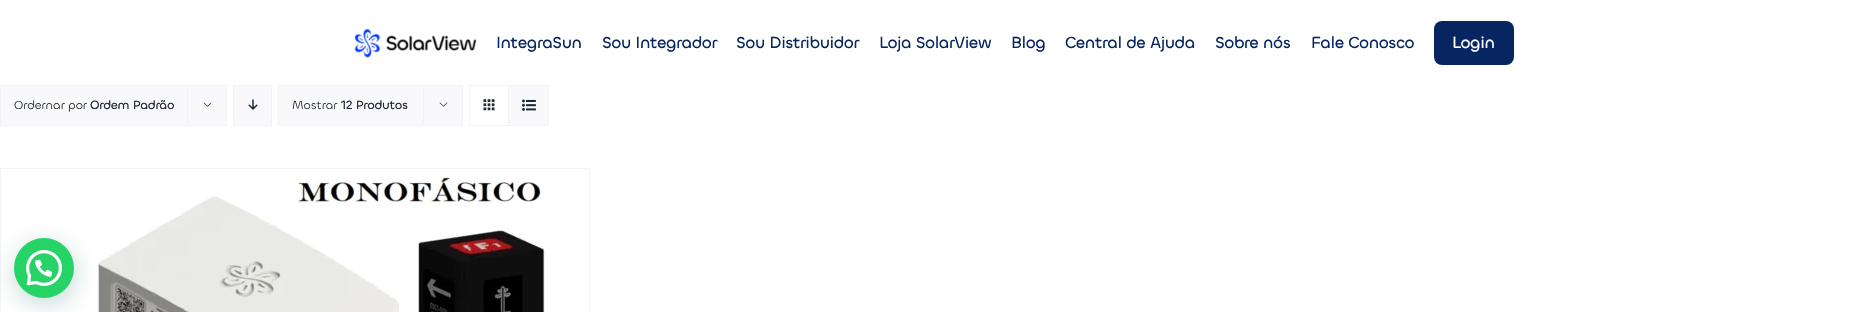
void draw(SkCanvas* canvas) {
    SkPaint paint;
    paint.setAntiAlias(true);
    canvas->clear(0xFFFFFFFF);
    canvas->drawImageRect(SkImages::DeferredFromEncodedData(SkData::MakeFromFileName("img1.png")), SkRect::MakeXYWH(354, 28, 123, 30), SkSamplingOptions());
    SkFont font1(fontMgr->matchFamilyStyle("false", SkFontStyle::Bold()), 16);
    font1.setSubpixel(true);
    paint.setColor(0xFF072561);
    canvas->drawString("IntegraSun", 496, 48, font1, paint);
    canvas->drawString("Sou Integrador", 602, 48, font1, paint);
    canvas->drawString("Sou Distribuidor", 736, 48, font1, paint);
    canvas->drawString("Loja SolarView", 879, 48, font1, paint);
    canvas->drawString("Blog", 1011, 48, font1, paint);
    canvas->drawString("Central de Ajuda", 1065, 48, font1, paint);
    canvas->drawString("Sobre nós", 1215, 48, font1, paint);
    canvas->drawString("Fale Conosco", 1311, 48, font1, paint);
    canvas->drawRoundRect(SkRect::MakeXYWH(1434, 21, 80, 44), 8, 8, paint);
    paint.setColor(0xFFFFFFFF);
    canvas->drawString("Login", 1452, 48, font1, paint);
    paint.setColor(0xFFF9F9FB);
    canvas->drawRect(SkRect::MakeXYWH(0.5f, 85.5f, 226, 40), paint);
    paint.setStyle(SkPaint::kStroke_Style);
    paint.setStrokeWidth(1);
    paint.setColor(0xFFF2F3F5);
    canvas->drawRect(SkRect::MakeXYWH(0.5f, 85.5f, 226, 40), paint);
    SkFont font2(fontMgr->matchFamilyStyle("false", SkFontStyle::Normal()), 12);
    font2.setSubpixel(true);
    paint.setStyle(SkPaint::kFill_Style);
    paint.setColor(0xFF212934);
    canvas->drawString("Ordernar por", 14, 109, font2, paint);
    SkFont font3(fontMgr->matchFamilyStyle("false", SkFontStyle::Bold()), 12);
    font3.setSubpixel(true);
    canvas->drawString("Ordem Padrão", 90, 109, font3, paint);
    paint.setColor(0xFFF2F3F5);
    canvas->drawRect(SkRect::MakeXYWH(187, 85, 1, 39), paint);
    canvas->drawImageRect(SkImages::DeferredFromEncodedData(SkData::MakeFromFileName("img2.png")), SkRect::MakeXYWH(203, 102, 9, 5), SkSamplingOptions());
    paint.setColor(0xFFF9F9FB);
    canvas->drawRect(SkRect::MakeXYWH(233.5f, 85.5f, 38, 40), paint);
    paint.setStyle(SkPaint::kStroke_Style);
    paint.setColor(0xFFF2F3F5);
    canvas->drawRect(SkRect::MakeXYWH(233.5f, 85.5f, 38, 40), paint);
    canvas->drawImageRect(SkImages::DeferredFromEncodedData(SkData::MakeFromFileName("img3.png")), SkRect::MakeXYWH(248, 99, 10, 11), SkSamplingOptions());
    paint.setStyle(SkPaint::kFill_Style);
    paint.setColor(0xFFF9F9FB);
    canvas->drawRect(SkRect::MakeXYWH(278.5f, 85.5f, 184, 40), paint);
    paint.setStyle(SkPaint::kStroke_Style);
    paint.setColor(0xFFF2F3F5);
    canvas->drawRect(SkRect::MakeXYWH(278.5f, 85.5f, 184, 40), paint);
    paint.setStyle(SkPaint::kFill_Style);
    paint.setColor(0xFF212934);
    canvas->drawString("Mostrar", 292, 109, font2, paint);
    canvas->drawString("12 Produtos", 341, 109, font3, paint);
    paint.setColor(0xFFF2F3F5);
    canvas->drawRect(SkRect::MakeXYWH(423, 85, 1, 39), paint);
    canvas->drawImageRect(SkImages::DeferredFromEncodedData(SkData::MakeFromFileName("img2.png")), SkRect::MakeXYWH(439, 102, 9, 5), SkSamplingOptions());
    paint.setStyle(SkPaint::kStroke_Style);
    canvas->drawRect(SkRect::MakeXYWH(469.5f, 85.5f, 79, 40), paint);
    paint.setStyle(SkPaint::kFill_Style);
    canvas->drawRect(SkRect::MakeXYWH(508, 86, 1, 39), paint);
    canvas->drawImageRect(SkImages::DeferredFromEncodedData(SkData::MakeFromFileName("img4.png")), SkRect::MakeXYWH(483, 99, 12, 12), SkSamplingOptions());
    paint.setColor(0xFFF9F9FB);
    canvas->drawRect(SkRect::MakeXYWH(509, 86, 39, 39), paint);
    canvas->drawImageRect(SkImages::DeferredFromEncodedData(SkData::MakeFromFileName("img5.png")), SkRect::MakeXYWH(522, 99, 14, 12), SkSamplingOptions());
    paint.setColor(0xFFF2F3F5);
    canvas->drawRect(SkRect::MakeXYWH(0, 168, 590, 1), paint);
    canvas->drawRect(SkRect::MakeXYWH(589, 168, 1, 144), paint);
    canvas->drawRect(SkRect::MakeXYWH(0, 168, 1, 144), paint);
    canvas->drawImageRect(SkImages::DeferredFromEncodedData(SkData::MakeFromFileName("img6.png")), SkRect::MakeXYWH(98, 177, 447, 135), SkSamplingOptions());
    paint.setColor(0x3D075E54);
    paint.setMaskFilter(SkMaskFilter::MakeBlur(kNormal_SkBlurStyle, 12));
    canvas->drawRoundRect(SkRect::MakeXYWH(15, 244, 60, 60), 30, 30, paint);
    paint.setMaskFilter(nullptr);
    paint.setColor(0xFF25D366);
    canvas->drawCircle(44, 268, 30, paint);
    canvas->drawImageRect(SkImages::DeferredFromEncodedData(SkData::MakeFromFileName("img7.png")), SkRect::MakeXYWH(26, 250, 36, 36), SkSamplingOptions());
}
